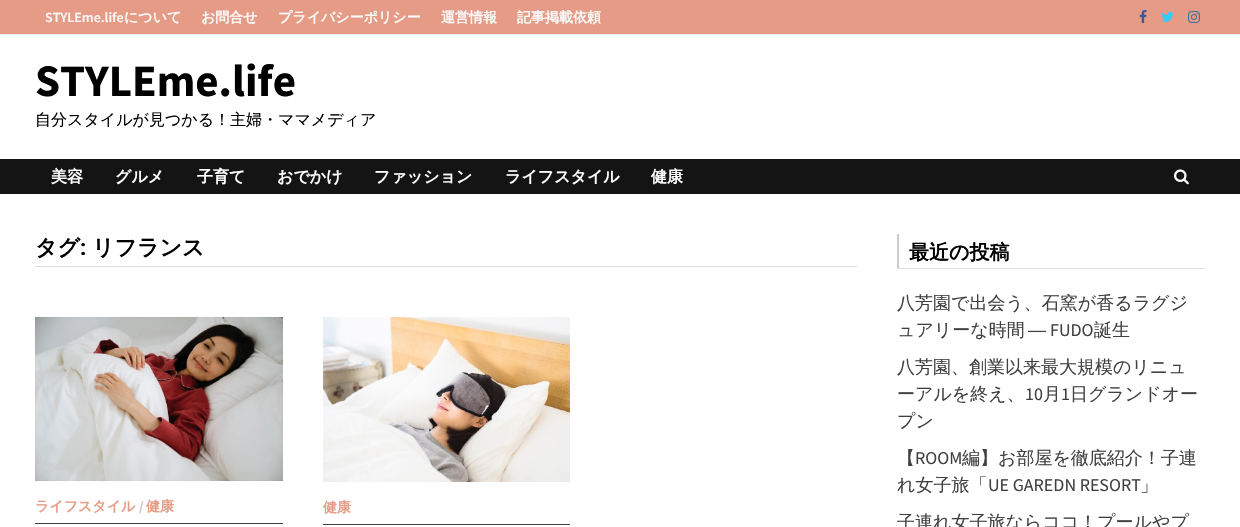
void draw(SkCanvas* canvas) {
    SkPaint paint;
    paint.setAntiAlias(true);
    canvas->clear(0xFFFFFFFF);
    paint.setColor(0xFFE59B85);
    canvas->drawRect(SkRect::MakeXYWH(0, 0, 1240, 34), paint);
    paint.setColor(0xFFEEEEEE);
    canvas->drawRect(SkRect::MakeXYWH(0, 34, 1240, 1), paint);
    SkFont font1(fontMgr->matchFamilyStyle("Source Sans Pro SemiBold", SkFontStyle(600, SkFontStyle::kNormal_Width, SkFontStyle::kUpright_Slant)), 14);
    font1.setSubpixel(true);
    paint.setColor(0xFFF9F9F9);
    canvas->drawString("STYLEme.life", 45, 22, font1, paint);
    SkFont font2(fontMgr->matchFamilyStyle("WenQuanYi Zen Hei", SkFontStyle::Bold()), 14);
    font2.setSubpixel(true);
    canvas->drawString("について", 124, 22, font2, paint);
    canvas->drawString("お問合せ", 201, 22, font2, paint);
    canvas->drawString("プライバシーポリシー", 278, 22, font2, paint);
    canvas->drawString("運営情報", 441, 22, font2, paint);
    canvas->drawString("記事掲載依頼", 517, 22, font2, paint);
    canvas->drawImageRect(SkImages::DeferredFromEncodedData(SkData::MakeFromFileName("img1.png")), SkRect::MakeXYWH(1139, 10, 8, 13), SkSamplingOptions());
    canvas->drawImageRect(SkImages::DeferredFromEncodedData(SkData::MakeFromFileName("img2.png")), SkRect::MakeXYWH(1161, 12, 13, 10), SkSamplingOptions());
    canvas->drawImageRect(SkImages::DeferredFromEncodedData(SkData::MakeFromFileName("img3.png")), SkRect::MakeXYWH(1188, 11, 12, 12), SkSamplingOptions());
    SkFont font3(fontMgr->matchFamilyStyle("Source Sans Pro", SkFontStyle::Bold()), 45);
    font3.setSubpixel(true);
    paint.setColor(0xFF000000);
    canvas->drawString("STYLEme.life", 35, 96, font3, paint);
    SkFont font4(fontMgr->matchFamilyStyle("WenQuanYi Zen Hei", SkFontStyle(500, SkFontStyle::kNormal_Width, SkFontStyle::kUpright_Slant)), 16);
    font4.setSubpixel(true);
    canvas->drawString("自分スタイルが見つかる！主婦・ママメディア", 35, 125, font4, paint);
    paint.setColor(0xFF141414);
    canvas->drawRect(SkRect::MakeXYWH(0, 159, 1240, 35), paint);
    SkFont font5(fontMgr->matchFamilyStyle("WenQuanYi Zen Hei", SkFontStyle::Bold()), 16);
    font5.setSubpixel(true);
    paint.setColor(0xFFFFFFFF);
    canvas->drawString("美容", 51, 182, font5, paint);
    canvas->drawString("グルメ", 115, 182, font5, paint);
    canvas->drawString("子育て", 197, 182, font5, paint);
    canvas->drawString("おでかけ", 277, 182, font5, paint);
    canvas->drawString("ファッション", 374, 182, font5, paint);
    canvas->drawString("ライフスタイル", 505, 182, font5, paint);
    canvas->drawString("健康", 651, 182, font5, paint);
    canvas->drawImageRect(SkImages::DeferredFromEncodedData(SkData::MakeFromFileName("img4.png")), SkRect::MakeXYWH(1174, 169, 15, 16), SkSamplingOptions());
    paint.setColor(0xFFDDDDDD);
    canvas->drawRect(SkRect::MakeXYWH(35, 266, 822, 1), paint);
    SkFont font6(fontMgr->matchFamilyStyle("WenQuanYi Zen Hei", SkFontStyle::Bold()), 22);
    font6.setSubpixel(true);
    paint.setColor(0xFF000000);
    canvas->drawString("タグ", 35, 255, font6, paint);
    SkFont font7(fontMgr->matchFamilyStyle("Roboto Condensed", SkFontStyle::Bold()), 22);
    font7.setSubpixel(true);
    canvas->drawString(":", 80, 255, font7, paint);
    canvas->drawString("リフランス", 92, 255, font6, paint);
    canvas->drawImageRect(SkImages::DeferredFromEncodedData(SkData::MakeFromFileName("img5.png")), SkRect::MakeXYWH(35, 317, 248, 164), SkSamplingOptions());
    paint.setColor(0xFFE59B85);
    canvas->drawString("ライフスタイル", 35, 511, font2, paint);
    SkFont font8(fontMgr->matchFamilyStyle("Source Sans Pro", SkFontStyle::Bold()), 14);
    font8.setSubpixel(true);
    paint.setColor(0xFFCCCCCC);
    canvas->drawString("/", 139, 511, font8, paint);
    paint.setColor(0xFFE59B85);
    canvas->drawString("健康", 146, 511, font2, paint);
    paint.setColor(0xFF3F3F3F);
    canvas->drawRect(SkRect::MakeXYWH(35, 523, 248, 1), paint);
    canvas->drawImageRect(SkImages::DeferredFromEncodedData(SkData::MakeFromFileName("img6.png")), SkRect::MakeXYWH(323, 317, 247, 165), SkSamplingOptions());
    paint.setColor(0xFFE59B85);
    canvas->drawString("健康", 323, 512, font2, paint);
    paint.setColor(0xFF3F3F3F);
    canvas->drawRect(SkRect::MakeXYWH(323, 524, 247, 1), paint);
    paint.setColor(0xFFDDDDDD);
    canvas->drawPath(SkPathBuilder().moveTo(1205, 269).lineTo(897, 269).lineTo(899, 268).lineTo(1205, 268).close().detach(), paint);
    paint.setColor(0xFFCCCCCC);
    canvas->drawPath(SkPathBuilder().moveTo(897, 269).lineTo(897, 234).lineTo(899, 234).lineTo(899, 268).close().detach(), paint);
    SkFont font9(fontMgr->matchFamilyStyle("WenQuanYi Zen Hei", SkFontStyle::Bold()), 20);
    font9.setSubpixel(true);
    paint.setColor(0xFF000000);
    canvas->drawString("最近の投稿", 909, 259, font9, paint);
    SkFont font10(fontMgr->matchFamilyStyle("WenQuanYi Zen Hei", SkFontStyle(500, SkFontStyle::kNormal_Width, SkFontStyle::kUpright_Slant)), 18);
    font10.setSubpixel(true);
    paint.setColor(0xFF404040);
    canvas->drawString("八芳園で出会う、石窯が香るラグジ", 897, 309, font10, paint);
    canvas->drawString("ュアリーな時間", 897, 336, font10, paint);
    SkFont font11(fontMgr->matchFamilyStyle("Liberation Sans", SkFontStyle::Normal()), 18);
    font11.setSubpixel(true);
    canvas->drawString("―", 1028, 336, font11, paint);
    SkFont font12(fontMgr->matchFamilyStyle("Source Sans Pro", SkFontStyle::Normal()), 18);
    font12.setSubpixel(true);
    canvas->drawString("FUDO", 1050, 336, font12, paint);
    canvas->drawString("誕生", 1094, 336, font10, paint);
    canvas->drawString("八芳園、創業以来最大規模のリニュ", 897, 373, font10, paint);
    canvas->drawString("ーアルを終え、", 897, 400, font10, paint);
    canvas->drawString("10", 1025, 400, font12, paint);
    canvas->drawString("月", 1043, 400, font10, paint);
    canvas->drawString("1", 1061, 400, font12, paint);
    canvas->drawString("日グランドオー", 1070, 400, font10, paint);
    canvas->drawString("プン", 897, 427, font10, paint);
    canvas->drawString("【", 897, 464, font10, paint);
    canvas->drawString("ROOM", 915, 464, font12, paint);
    canvas->drawString("編】お部屋を徹底紹介！子連", 962, 464, font10, paint);
    canvas->drawString("れ女子旅「", 897, 491, font10, paint);
    canvas->drawString("UE GAREDN RESORT", 988, 491, font12, paint);
    canvas->drawString("」", 1140, 491, font10, paint);
    canvas->drawString("子連れ女子旅ならココ！プールやプ", 897, 528, font10, paint);
}
